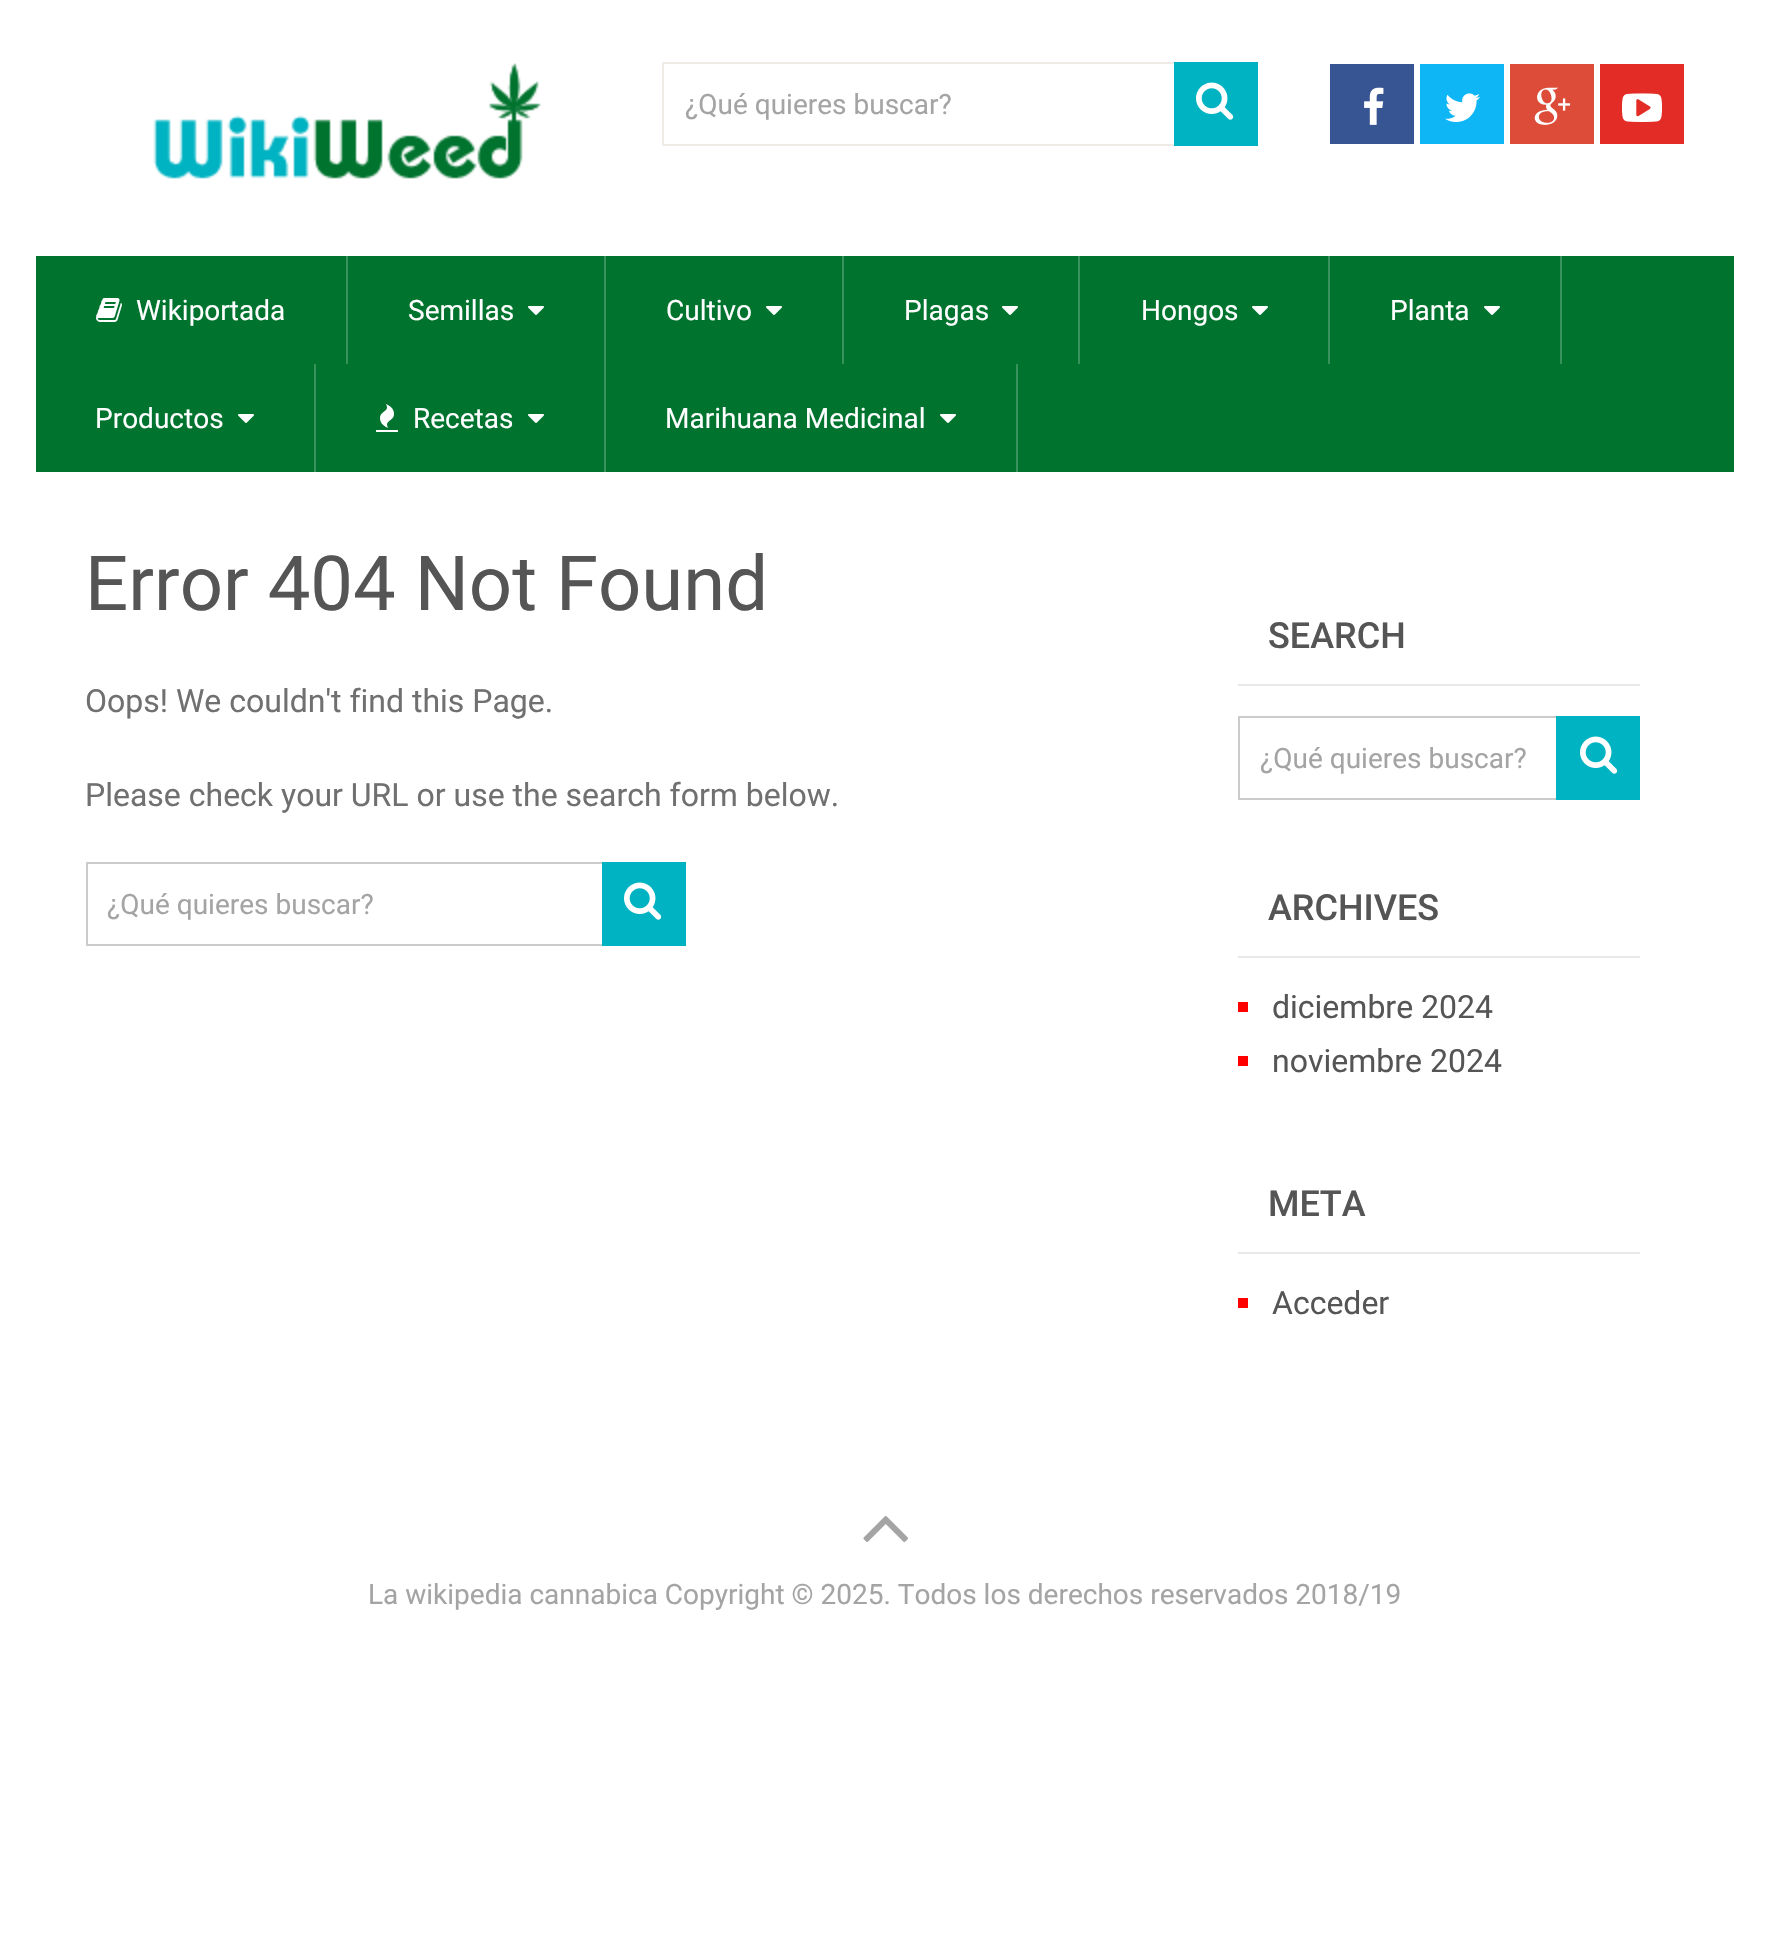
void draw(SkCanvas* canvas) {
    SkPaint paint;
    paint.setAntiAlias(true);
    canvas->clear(0xFFFFFFFF);
    canvas->drawImageRect(SkImages::DeferredFromEncodedData(SkData::MakeFromFileName("img1.png")), SkRect::MakeXYWH(153, 63, 388, 116), SkSamplingOptions());
    paint.setStyle(SkPaint::kStroke_Style);
    paint.setStrokeWidth(2);
    paint.setColor(0xFFEFEBE7);
    canvas->drawRect(SkRect::MakeXYWH(663, 63, 594, 82), paint);
    SkFont font1(fontMgr->matchFamilyStyle("Roboto", SkFontStyle::Normal()), 28);
    font1.setSubpixel(true);
    paint.setStyle(SkPaint::kFill_Style);
    paint.setColor(0xFFA4A4A4);
    canvas->drawString("¿Qué quieres buscar?", 685, 114, font1, paint);
    paint.setColor(0xFF00B3C2);
    canvas->drawRect(SkRect::MakeXYWH(1174, 62, 84, 84), paint);
    canvas->drawImageRect(SkImages::DeferredFromEncodedData(SkData::MakeFromFileName("img2.png")), SkRect::MakeXYWH(1196, 82, 38, 38), SkSamplingOptions());
    paint.setColor(0xFF375593);
    canvas->drawRect(SkRect::MakeXYWH(1330, 64, 84, 80), paint);
    canvas->drawImageRect(SkImages::DeferredFromEncodedData(SkData::MakeFromFileName("img3.png")), SkRect::MakeXYWH(1364, 87, 20, 38), SkSamplingOptions());
    paint.setColor(0xFF0EB6F6);
    canvas->drawRect(SkRect::MakeXYWH(1420, 64, 84, 80), paint);
    canvas->drawImageRect(SkImages::DeferredFromEncodedData(SkData::MakeFromFileName("img4.png")), SkRect::MakeXYWH(1445, 93, 35, 29), SkSamplingOptions());
    paint.setColor(0xFFDD4B39);
    canvas->drawRect(SkRect::MakeXYWH(1510, 64, 84, 80), paint);
    canvas->drawImageRect(SkImages::DeferredFromEncodedData(SkData::MakeFromFileName("img5.png")), SkRect::MakeXYWH(1534, 87, 37, 38), SkSamplingOptions());
    paint.setColor(0xFFE32C26);
    canvas->drawRect(SkRect::MakeXYWH(1600, 64, 84, 80), paint);
    canvas->drawImageRect(SkImages::DeferredFromEncodedData(SkData::MakeFromFileName("img6.png")), SkRect::MakeXYWH(1622, 93, 40, 29), SkSamplingOptions());
    paint.setColor(0xFF00732E);
    canvas->drawRect(SkRect::MakeXYWH(36, 256, 1698, 216), paint);
    paint.setColor(0xFF38925C);
    canvas->drawRect(SkRect::MakeXYWH(346, 256, 2, 108), paint);
    canvas->drawImageRect(SkImages::DeferredFromEncodedData(SkData::MakeFromFileName("img7.png")), SkRect::MakeXYWH(96, 298, 26, 24), SkSamplingOptions());
    paint.setColor(0xFFFFFFFF);
    canvas->drawString("Wikiportada", 136, 320, font1, paint);
    paint.setColor(0xFF38925C);
    canvas->drawRect(SkRect::MakeXYWH(604, 256, 2, 216), paint);
    paint.setColor(0xFFFFFFFF);
    canvas->drawString("Semillas", 408, 320, font1, paint);
    canvas->drawImageRect(SkImages::DeferredFromEncodedData(SkData::MakeFromFileName("img8.png")), SkRect::MakeXYWH(528, 306, 16, 9), SkSamplingOptions());
    paint.setColor(0xFF38925C);
    canvas->drawRect(SkRect::MakeXYWH(842, 256, 2, 108), paint);
    paint.setColor(0xFFFFFFFF);
    canvas->drawString("Cultivo", 666, 320, font1, paint);
    canvas->drawImageRect(SkImages::DeferredFromEncodedData(SkData::MakeFromFileName("img8.png")), SkRect::MakeXYWH(766, 306, 16, 9), SkSamplingOptions());
    paint.setColor(0xFF38925C);
    canvas->drawRect(SkRect::MakeXYWH(1078, 256, 2, 108), paint);
    paint.setColor(0xFFFFFFFF);
    canvas->drawString("Plagas", 904, 320, font1, paint);
    canvas->drawImageRect(SkImages::DeferredFromEncodedData(SkData::MakeFromFileName("img8.png")), SkRect::MakeXYWH(1002, 306, 16, 9), SkSamplingOptions());
    paint.setColor(0xFF38925C);
    canvas->drawRect(SkRect::MakeXYWH(1328, 256, 2, 108), paint);
    paint.setColor(0xFFFFFFFF);
    canvas->drawString("Hongos", 1141, 320, font1, paint);
    canvas->drawImageRect(SkImages::DeferredFromEncodedData(SkData::MakeFromFileName("img8.png")), SkRect::MakeXYWH(1252, 306, 16, 9), SkSamplingOptions());
    paint.setColor(0xFF38925C);
    canvas->drawRect(SkRect::MakeXYWH(1560, 256, 2, 108), paint);
    paint.setColor(0xFFFFFFFF);
    canvas->drawString("Planta", 1390, 320, font1, paint);
    canvas->drawImageRect(SkImages::DeferredFromEncodedData(SkData::MakeFromFileName("img8.png")), SkRect::MakeXYWH(1484, 306, 16, 9), SkSamplingOptions());
    paint.setColor(0xFF38925C);
    canvas->drawRect(SkRect::MakeXYWH(314, 364, 2, 108), paint);
    paint.setColor(0xFFFFFFFF);
    canvas->drawString("Productos", 95, 428, font1, paint);
    canvas->drawImageRect(SkImages::DeferredFromEncodedData(SkData::MakeFromFileName("img8.png")), SkRect::MakeXYWH(238, 414, 16, 9), SkSamplingOptions());
    canvas->drawImageRect(SkImages::DeferredFromEncodedData(SkData::MakeFromFileName("img9.png")), SkRect::MakeXYWH(376, 404, 22, 28), SkSamplingOptions());
    canvas->drawString("Recetas", 413, 428, font1, paint);
    canvas->drawImageRect(SkImages::DeferredFromEncodedData(SkData::MakeFromFileName("img8.png")), SkRect::MakeXYWH(528, 414, 16, 9), SkSamplingOptions());
    paint.setColor(0xFF38925C);
    canvas->drawRect(SkRect::MakeXYWH(1016, 364, 2, 108), paint);
    paint.setColor(0xFFFFFFFF);
    canvas->drawString("Marihuana Medicinal", 665, 428, font1, paint);
    canvas->drawImageRect(SkImages::DeferredFromEncodedData(SkData::MakeFromFileName("img8.png")), SkRect::MakeXYWH(940, 414, 16, 9), SkSamplingOptions());
    SkFont font2(fontMgr->matchFamilyStyle("Roboto", SkFontStyle::Normal()), 76);
    font2.setSubpixel(true);
    paint.setColor(0xFF555555);
    canvas->drawString("Error 404 Not Found", 85, 610, font2, paint);
    SkFont font3(fontMgr->matchFamilyStyle("Roboto", SkFontStyle::Normal()), 32);
    font3.setSubpixel(true);
    paint.setColor(0xFF707070);
    canvas->drawString("Oops! We couldn't find this Page.", 85, 712, font3, paint);
    canvas->drawString("Please check your URL or use the search form below.", 85, 806, font3, paint);
    paint.setStyle(SkPaint::kStroke_Style);
    paint.setColor(0xFFCCCCCC);
    canvas->drawRect(SkRect::MakeXYWH(87, 863, 598, 82), paint);
    paint.setStyle(SkPaint::kFill_Style);
    paint.setColor(0xFFA4A4A4);
    canvas->drawString("¿Qué quieres buscar?", 107, 914, font1, paint);
    paint.setColor(0xFF00B3C2);
    canvas->drawRect(SkRect::MakeXYWH(602, 862, 84, 84), paint);
    canvas->drawImageRect(SkImages::DeferredFromEncodedData(SkData::MakeFromFileName("img2.png")), SkRect::MakeXYWH(624, 882, 38, 38), SkSamplingOptions());
    paint.setColor(0xFFE9E9E9);
    canvas->drawRect(SkRect::MakeXYWH(1238, 684, 402, 2), paint);
    SkFont font4(fontMgr->matchFamilyStyle("Roboto", SkFontStyle(500, SkFontStyle::kNormal_Width, SkFontStyle::kUpright_Slant)), 36);
    font4.setSubpixel(true);
    paint.setColor(0xFF555555);
    canvas->drawString("SEARCH", 1268, 648, font4, paint);
    paint.setStyle(SkPaint::kStroke_Style);
    paint.setColor(0xFFCCCCCC);
    canvas->drawRect(SkRect::MakeXYWH(1239, 717, 400, 82), paint);
    paint.setStyle(SkPaint::kFill_Style);
    paint.setColor(0xFFA4A4A4);
    canvas->drawString("¿Qué quieres buscar?", 1260, 768, font1, paint);
    paint.setColor(0xFF00B3C2);
    canvas->drawRect(SkRect::MakeXYWH(1556, 716, 84, 84), paint);
    canvas->drawImageRect(SkImages::DeferredFromEncodedData(SkData::MakeFromFileName("img2.png")), SkRect::MakeXYWH(1580, 736, 38, 38), SkSamplingOptions());
    paint.setColor(0xFFE9E9E9);
    canvas->drawRect(SkRect::MakeXYWH(1238, 956, 402, 2), paint);
    paint.setColor(0xFF555555);
    canvas->drawString("ARCHIVES", 1268, 920, font4, paint);
    paint.setColor(0xFFFF0000);
    canvas->drawRect(SkRect::MakeXYWH(1238, 1002, 10, 10), paint);
    paint.setColor(0xFF555555);
    canvas->drawString("diciembre 2024", 1272, 1018, font3, paint);
    paint.setColor(0xFFFF0000);
    canvas->drawRect(SkRect::MakeXYWH(1238, 1056, 10, 10), paint);
    paint.setColor(0xFF555555);
    canvas->drawString("noviembre 2024", 1272, 1072, font3, paint);
    paint.setColor(0xFFE9E9E9);
    canvas->drawRect(SkRect::MakeXYWH(1238, 1252, 402, 2), paint);
    paint.setColor(0xFF555555);
    canvas->drawString("META", 1268, 1216, font4, paint);
    paint.setColor(0xFFFF0000);
    canvas->drawRect(SkRect::MakeXYWH(1238, 1298, 10, 10), paint);
    paint.setColor(0xFF555555);
    canvas->drawString("Acceder", 1272, 1314, font3, paint);
    canvas->drawImageRect(SkImages::DeferredFromEncodedData(SkData::MakeFromFileName("img10.png")), SkRect::MakeXYWH(863, 1516, 45, 26), SkSamplingOptions());
    paint.setColor(0xFFA4A4A4);
    canvas->drawString("La wikipedia cannabica Copyright © 2025. Todos los derechos reservados 2018/19", 368, 1604, font1, paint);
}
